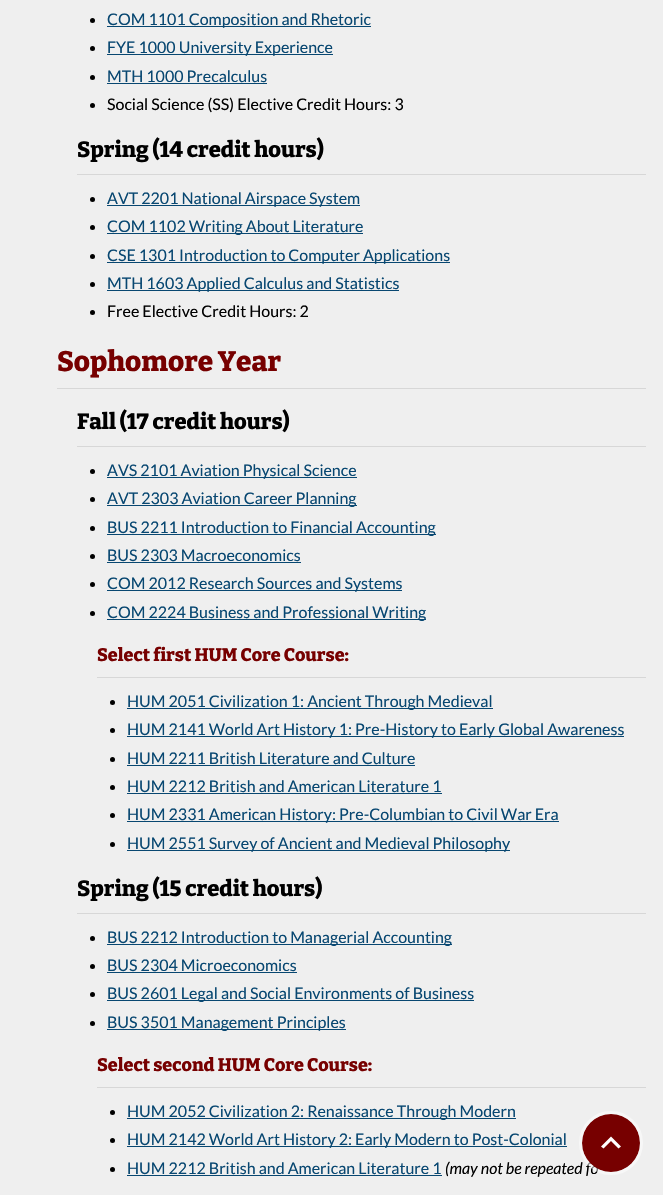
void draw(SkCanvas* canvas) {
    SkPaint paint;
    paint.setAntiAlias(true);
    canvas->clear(0xFFEFEFEF);
    paint.setColor(0xFF000000);
    canvas->drawCircle(92.5f, 20.5f, 2.5f, paint);
    paint.setColor(0xFF084771);
    canvas->drawRect(SkRect::MakeXYWH(107, 26, 264, 1), paint);
    SkFont font1(fontMgr->matchFamilyStyle("Lato", SkFontStyle::Normal()), 16);
    font1.setSubpixel(true);
    canvas->drawString("COM 1101 Composition and Rhetoric", 107, 25, font1, paint);
    paint.setColor(0xFF000000);
    canvas->drawCircle(92.5f, 48.5f, 2.5f, paint);
    paint.setColor(0xFF084771);
    canvas->drawRect(SkRect::MakeXYWH(107, 54, 226, 1), paint);
    canvas->drawString("FYE 1000 University Experience", 107, 53, font1, paint);
    paint.setColor(0xFF000000);
    canvas->drawCircle(92.5f, 77.5f, 2.5f, paint);
    paint.setColor(0xFF084771);
    canvas->drawString("MTH 1000 Precalculus", 107, 82, font1, paint);
    canvas->drawRect(SkRect::MakeXYWH(107, 83, 160, 1), paint);
    paint.setColor(0xFF000000);
    canvas->drawCircle(92.5f, 105.5f, 2.5f, paint);
    canvas->drawString("Social Science (SS) Elective Credit Hours: 3", 107, 110, font1, paint);
    SkFont font2(fontMgr->matchFamilyStyle("Bitter", SkFontStyle(800, SkFontStyle::kNormal_Width, SkFontStyle::kUpright_Slant)), 22);
    font2.setSubpixel(true);
    canvas->drawString("Spring (14 credit hours)", 77, 157, font2, paint);
    paint.setColor(0xFFD7D7D7);
    canvas->drawRect(SkRect::MakeXYWH(77, 174, 569, 1), paint);
    paint.setColor(0xFF000000);
    canvas->drawCircle(92.5f, 199.5f, 2.5f, paint);
    paint.setColor(0xFF084771);
    canvas->drawRect(SkRect::MakeXYWH(107, 205, 253, 1), paint);
    canvas->drawString("AVT 2201 National Airspace System", 107, 204, font1, paint);
    paint.setColor(0xFF000000);
    canvas->drawCircle(92.5f, 227.5f, 2.5f, paint);
    paint.setColor(0xFF084771);
    canvas->drawRect(SkRect::MakeXYWH(107, 233, 256, 1), paint);
    canvas->drawString("COM 1102 Writing About Literature", 107, 232, font1, paint);
    paint.setColor(0xFF000000);
    canvas->drawCircle(92.5f, 256.5f, 2.5f, paint);
    paint.setColor(0xFF084771);
    canvas->drawRect(SkRect::MakeXYWH(107, 262, 343, 1), paint);
    canvas->drawString("CSE 1301 Introduction to Computer Applications", 107, 261, font1, paint);
    paint.setColor(0xFF000000);
    canvas->drawCircle(92.5f, 284.5f, 2.5f, paint);
    paint.setColor(0xFF084771);
    canvas->drawRect(SkRect::MakeXYWH(107, 290, 292, 1), paint);
    canvas->drawString("MTH 1603 Applied Calculus and Statistics", 107, 289, font1, paint);
    paint.setColor(0xFF000000);
    canvas->drawCircle(92.5f, 312.5f, 2.5f, paint);
    canvas->drawString("Free Elective Credit Hours: 2", 107, 317, font1, paint);
    SkFont font3(fontMgr->matchFamilyStyle("Bitter", SkFontStyle(800, SkFontStyle::kNormal_Width, SkFontStyle::kUpright_Slant)), 28);
    font3.setSubpixel(true);
    paint.setColor(0xFF770000);
    canvas->drawString("Sophomore Year", 57, 371, font3, paint);
    paint.setColor(0xFFD7D7D7);
    canvas->drawRect(SkRect::MakeXYWH(57, 388, 589, 1), paint);
    paint.setColor(0xFF000000);
    canvas->drawString("Fall (17 credit hours)", 77, 429, font2, paint);
    paint.setColor(0xFFD7D7D7);
    canvas->drawRect(SkRect::MakeXYWH(77, 446, 569, 1), paint);
    paint.setColor(0xFF000000);
    canvas->drawCircle(92.5f, 471.5f, 2.5f, paint);
    paint.setColor(0xFF084771);
    canvas->drawRect(SkRect::MakeXYWH(107, 477, 250, 1), paint);
    canvas->drawString("AVS 2101 Aviation Physical Science", 107, 476, font1, paint);
    paint.setColor(0xFF000000);
    canvas->drawCircle(92.5f, 499.5f, 2.5f, paint);
    paint.setColor(0xFF084771);
    canvas->drawRect(SkRect::MakeXYWH(107, 505, 250, 1), paint);
    canvas->drawString("AVT 2303 Aviation Career Planning", 107, 504, font1, paint);
    paint.setColor(0xFF000000);
    canvas->drawCircle(92.5f, 528.5f, 2.5f, paint);
    paint.setColor(0xFF084771);
    canvas->drawRect(SkRect::MakeXYWH(107, 534, 329, 1), paint);
    canvas->drawString("BUS 2211 Introduction to Financial Accounting", 107, 533, font1, paint);
    paint.setColor(0xFF000000);
    canvas->drawCircle(92.5f, 556.5f, 2.5f, paint);
    paint.setColor(0xFF084771);
    canvas->drawString("BUS 2303 Macroeconomics", 107, 561, font1, paint);
    canvas->drawRect(SkRect::MakeXYWH(107, 562, 194, 1), paint);
    paint.setColor(0xFF000000);
    canvas->drawCircle(92.5f, 584.5f, 2.5f, paint);
    paint.setColor(0xFF084771);
    canvas->drawRect(SkRect::MakeXYWH(107, 590, 295, 1), paint);
    canvas->drawString("COM 2012 Research Sources and Systems", 107, 589, font1, paint);
    paint.setColor(0xFF000000);
    canvas->drawCircle(92.5f, 613.5f, 2.5f, paint);
    paint.setColor(0xFF084771);
    canvas->drawRect(SkRect::MakeXYWH(107, 619, 319, 1), paint);
    canvas->drawString("COM 2224 Business and Professional Writing", 107, 618, font1, paint);
    SkFont font4(fontMgr->matchFamilyStyle("Bitter", SkFontStyle(800, SkFontStyle::kNormal_Width, SkFontStyle::kUpright_Slant)), 18);
    font4.setSubpixel(true);
    paint.setColor(0xFF770000);
    canvas->drawString("Select first HUM Core Course:", 97, 661, font4, paint);
    paint.setColor(0xFFD7D7D7);
    canvas->drawRect(SkRect::MakeXYWH(97, 677, 549, 1), paint);
    paint.setColor(0xFF000000);
    canvas->drawCircle(112.5f, 702.5f, 2.5f, paint);
    paint.setColor(0xFF084771);
    canvas->drawRect(SkRect::MakeXYWH(127, 708, 366, 1), paint);
    canvas->drawString("HUM 2051 Civilization 1: Ancient Through Medieval", 127, 707, font1, paint);
    paint.setColor(0xFF000000);
    canvas->drawCircle(112.5f, 730.5f, 2.5f, paint);
    paint.setColor(0xFF084771);
    canvas->drawRect(SkRect::MakeXYWH(127, 736, 497, 1), paint);
    canvas->drawString("HUM 2141 World Art History 1: Pre-History to Early Global Awareness", 127, 735, font1, paint);
    paint.setColor(0xFF000000);
    canvas->drawCircle(112.5f, 759.5f, 2.5f, paint);
    paint.setColor(0xFF084771);
    canvas->drawString("HUM 2211 British Literature and Culture", 127, 764, font1, paint);
    canvas->drawRect(SkRect::MakeXYWH(127, 765, 288, 1), paint);
    paint.setColor(0xFF000000);
    canvas->drawCircle(112.5f, 787.5f, 2.5f, paint);
    paint.setColor(0xFF084771);
    canvas->drawString("HUM 2212 British and American Literature 1", 127, 792, font1, paint);
    canvas->drawRect(SkRect::MakeXYWH(127, 793, 315, 1), paint);
    paint.setColor(0xFF000000);
    canvas->drawCircle(112.5f, 815.5f, 2.5f, paint);
    paint.setColor(0xFF084771);
    canvas->drawRect(SkRect::MakeXYWH(127, 821, 432, 1), paint);
    canvas->drawString("HUM 2331 American History: Pre-Columbian to Civil War Era", 127, 820, font1, paint);
    paint.setColor(0xFF000000);
    canvas->drawCircle(112.5f, 844.5f, 2.5f, paint);
    paint.setColor(0xFF084771);
    canvas->drawRect(SkRect::MakeXYWH(127, 850, 383, 1), paint);
    canvas->drawString("HUM 2551 Survey of Ancient and Medieval Philosophy", 127, 849, font1, paint);
    paint.setColor(0xFF000000);
    canvas->drawString("Spring (15 credit hours)", 77, 896, font2, paint);
    paint.setColor(0xFFD7D7D7);
    canvas->drawRect(SkRect::MakeXYWH(77, 913, 569, 1), paint);
    paint.setColor(0xFF000000);
    canvas->drawCircle(92.5f, 938.5f, 2.5f, paint);
    paint.setColor(0xFF084771);
    canvas->drawRect(SkRect::MakeXYWH(107, 944, 345, 1), paint);
    canvas->drawString("BUS 2212 Introduction to Managerial Accounting", 107, 943, font1, paint);
    paint.setColor(0xFF000000);
    canvas->drawCircle(92.5f, 966.5f, 2.5f, paint);
    paint.setColor(0xFF084771);
    canvas->drawString("BUS 2304 Microeconomics", 107, 971, font1, paint);
    canvas->drawRect(SkRect::MakeXYWH(107, 972, 190, 1), paint);
    paint.setColor(0xFF000000);
    canvas->drawCircle(92.5f, 994.5f, 2.5f, paint);
    paint.setColor(0xFF084771);
    canvas->drawRect(SkRect::MakeXYWH(107, 1000, 367, 1), paint);
    canvas->drawString("BUS 2601 Legal and Social Environments of Business", 107, 999, font1, paint);
    paint.setColor(0xFF000000);
    canvas->drawCircle(92.5f, 1023.5f, 2.5f, paint);
    paint.setColor(0xFF084771);
    canvas->drawRect(SkRect::MakeXYWH(107, 1029, 239, 1), paint);
    canvas->drawString("BUS 3501 Management Principles", 107, 1028, font1, paint);
    paint.setColor(0xFF770000);
    canvas->drawString("Select second HUM Core Course:", 97, 1071, font4, paint);
    paint.setColor(0xFFD7D7D7);
    canvas->drawRect(SkRect::MakeXYWH(97, 1087, 549, 1), paint);
    paint.setColor(0xFF000000);
    canvas->drawCircle(112.5f, 1112.5f, 2.5f, paint);
    paint.setColor(0xFF084771);
    canvas->drawRect(SkRect::MakeXYWH(127, 1118, 389, 1), paint);
    canvas->drawString("HUM 2052 Civilization 2: Renaissance Through Modern", 127, 1117, font1, paint);
    paint.setColor(0xFF000000);
    canvas->drawCircle(112.5f, 1140.5f, 2.5f, paint);
    paint.setColor(0xFF084771);
    canvas->drawRect(SkRect::MakeXYWH(127, 1146, 440, 1), paint);
    canvas->drawString("HUM 2142 World Art History 2: Early Modern to Post-Colonial", 127, 1145, font1, paint);
    paint.setColor(0xFF000000);
    canvas->drawCircle(112.5f, 1169.5f, 2.5f, paint);
    paint.setColor(0xFF084771);
    canvas->drawString("HUM 2212 British and American Literature 1", 127, 1174, font1, paint);
    canvas->drawRect(SkRect::MakeXYWH(127, 1175, 315, 1), paint);
    SkFont font5(fontMgr->matchFamilyStyle("Lato", SkFontStyle::Italic()), 16);
    font5.setSubpixel(true);
    paint.setColor(0xFF000000);
    canvas->drawString("(may not be repeated fo", 445, 1174, font5, paint);
    paint.setColor(0xFF770000);
    canvas->drawCircle(611, 1143, 29, paint);
    paint.setStyle(SkPaint::kStroke_Style);
    paint.setStrokeWidth(3);
    paint.setColor(0x80FFFFFF);
    canvas->drawCircle(611, 1143, 30.5f, paint);
    paint.setStyle(SkPaint::kFill_Style);
    paint.setColor(0xFFFFFFFF);
    canvas->drawPath(SkPathBuilder().moveTo(603.5f, 1148.5f).lineTo(611, 1141).lineTo(618.5f, 1148.5f).lineTo(621, 1146.5f).lineTo(611, 1136.5f).lineTo(601, 1146.5f).close().detach(), paint);
}
